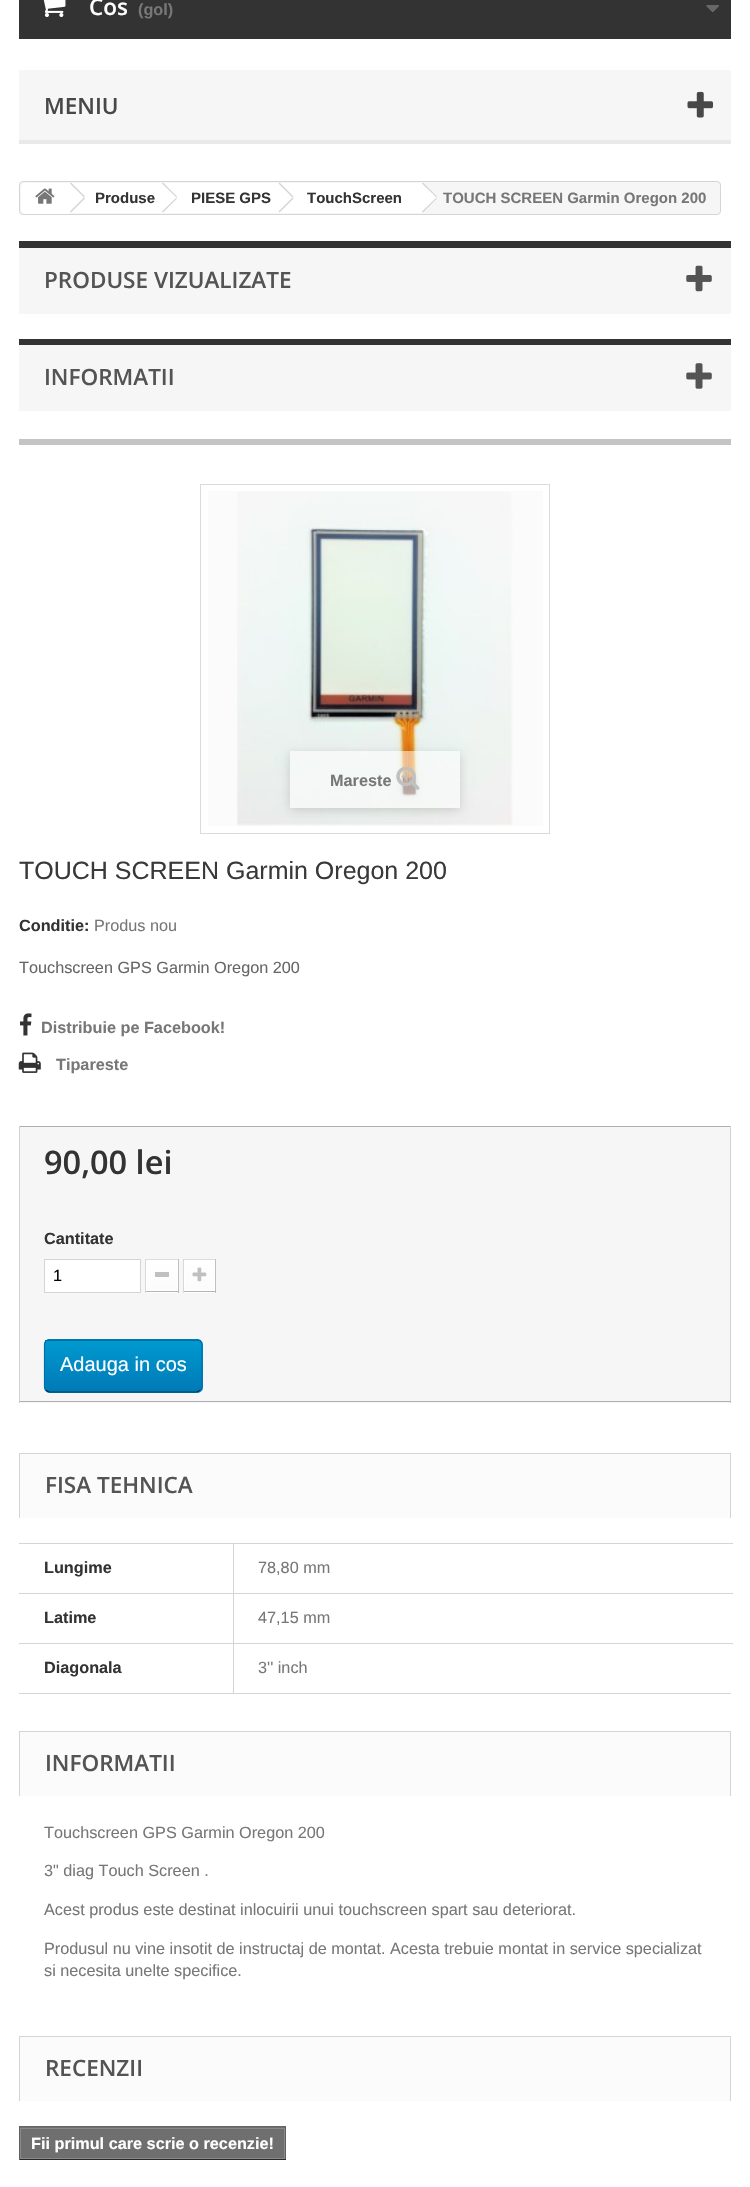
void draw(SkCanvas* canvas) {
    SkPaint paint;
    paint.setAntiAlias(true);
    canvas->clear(0xFFFFFFFF);
    paint.setColor(0xFF333333);
    canvas->drawRect(SkRect::MakeXYWH(19, 0, 712, 39), paint);
    canvas->drawImageRect(SkImages::DeferredFromEncodedData(SkData::MakeFromFileName("img1.png")), SkRect::MakeXYWH(43, 0, 23, 17), SkSamplingOptions());
    SkFont font1(fontMgr->matchFamilyStyle("Open Sans", SkFontStyle(600, SkFontStyle::kNormal_Width, SkFontStyle::kUpright_Slant)), 22.5f);
    font1.setSubpixel(true);
    paint.setColor(0xFFFFFFFF);
    canvas->drawString("Cos", 89, 15, font1, paint);
    SkFont font2(fontMgr->matchFamilyStyle("Liberation Sans", SkFontStyle::Bold()), 16.25f);
    font2.setSubpixel(true);
    paint.setColor(0xFF777777);
    canvas->drawString("(gol)", 138, 15, font2, paint);
    canvas->drawImageRect(SkImages::DeferredFromEncodedData(SkData::MakeFromFileName("img2.png")), SkRect::MakeXYWH(706, 5, 13, 8), SkSamplingOptions());
    paint.setColor(0xFFF6F6F6);
    canvas->drawRect(SkRect::MakeXYWH(19, 70, 712, 70), paint);
    paint.setColor(0xFFE9E9E9);
    canvas->drawRect(SkRect::MakeXYWH(19, 140, 712, 4), paint);
    paint.setColor(0xFF484848);
    canvas->drawString("MENIU", 44, 114, font1, paint);
    canvas->drawImageRect(SkImages::DeferredFromEncodedData(SkData::MakeFromFileName("img3.png")), SkRect::MakeXYWH(687, 91, 27, 27), SkSamplingOptions());
    paint.setColor(0xFFF6F6F6);
    canvas->drawRoundRect(SkRect::MakeXYWH(19.5f, 181.5f, 701, 33), 3.5f, 3.5f, paint);
    paint.setStyle(SkPaint::kStroke_Style);
    paint.setStrokeWidth(1);
    paint.setColor(0xFFD6D4D4);
    canvas->drawRoundRect(SkRect::MakeXYWH(19.5f, 181.5f, 701, 33), 3.5f, 3.5f, paint);
    paint.setStyle(SkPaint::kFill_Style);
    paint.setColor(0xFFFFFFFF);
    canvas->drawPath(SkPathBuilder().moveTo(25, 183).lineTo(69, 183).lineTo(69, 214).lineTo(25, 214).cubicTo(23, 214, 21, 212, 21, 210).lineTo(21, 187).cubicTo(21, 185, 23, 183, 25, 183).close().detach(), paint);
    canvas->drawImageRect(SkImages::DeferredFromEncodedData(SkData::MakeFromFileName("img4.png")), SkRect::MakeXYWH(35, 188, 20, 16), SkSamplingOptions());
    canvas->drawRect(SkRect::MakeXYWH(69, 183, 95, 30), paint);
    paint.setColor(0xFFD6D4D4);
    canvas->drawPath(SkPathBuilder().moveTo(71, 182.5f).lineTo(85, 196.5f).lineTo(84, 197.5f).lineTo(70, 183.5f).close().detach(), paint);
    canvas->drawPath(SkPathBuilder().moveTo(84, 197.5f).lineTo(85, 198.5f).lineTo(71, 212.5f).lineTo(70, 211.5f).close().detach(), paint);
    SkFont font3(fontMgr->matchFamilyStyle("Liberation Sans", SkFontStyle::Bold()), 15);
    font3.setSubpixel(true);
    paint.setColor(0xFF333333);
    canvas->drawString("Produse", 95, 203, font3, paint);
    paint.setColor(0xFFFFFFFF);
    canvas->drawPath(SkPathBuilder().moveTo(176.5f, 183.5f).cubicTo(174, 181, 170, 186.5f, 169, 187.5f).lineTo(162.5f, 193.5f).cubicTo(159, 197, 159, 198, 162.5f, 201.5f).lineTo(171, 209.5f).cubicTo(174.5f, 213, 175, 213, 178.5f, 209.5f).lineTo(185, 203.5f).cubicTo(187, 201.5f, 191, 199, 189, 195.5f).close().detach(), paint);
    canvas->drawRect(SkRect::MakeXYWH(164, 183, 116, 30), paint);
    paint.setColor(0xFFD6D4D4);
    canvas->drawPath(SkPathBuilder().moveTo(163, 182.5f).lineTo(177, 196.5f).lineTo(176.5f, 197.5f).lineTo(162, 183.5f).close().detach(), paint);
    canvas->drawPath(SkPathBuilder().moveTo(176.5f, 197.5f).lineTo(177, 198.5f).lineTo(163, 212.5f).lineTo(162, 211.5f).close().detach(), paint);
    paint.setColor(0xFF333333);
    canvas->drawString("PIESE GPS", 191, 203, font3, paint);
    paint.setColor(0xFFFFFFFF);
    canvas->drawPath(SkPathBuilder().moveTo(292.5f, 183.5f).lineTo(292, 183).lineTo(289.5f, 183).lineTo(289, 183.5f).lineTo(277, 195.5f).cubicTo(276, 196.5f, 276, 198.5f, 277, 199.5f).lineTo(289, 211.5f).cubicTo(290, 212.5f, 291.5f, 212.5f, 292.5f, 211.5f).lineTo(305, 199.5f).cubicTo(306, 198.5f, 306, 196.5f, 305, 195.5f).close().detach(), paint);
    canvas->drawRect(SkRect::MakeXYWH(280, 183, 141, 30), paint);
    paint.setColor(0xFFD6D4D4);
    canvas->drawPath(SkPathBuilder().moveTo(279.5f, 182.5f).lineTo(293.5f, 196.5f).lineTo(292.5f, 197.5f).lineTo(278.5f, 183.5f).close().detach(), paint);
    canvas->drawPath(SkPathBuilder().moveTo(292.5f, 197.5f).lineTo(293.5f, 198.5f).lineTo(279.5f, 212.5f).lineTo(278.5f, 211.5f).close().detach(), paint);
    paint.setColor(0xFF333333);
    canvas->drawString("TouchScreen", 307, 203, font3, paint);
    paint.setColor(0xFFFFFFFF);
    canvas->drawPath(SkPathBuilder().moveTo(424, 183.5f).cubicTo(423.5f, 183, 423, 183, 422, 183).cubicTo(420.5f, 183, 420, 184, 418.5f, 185.5f).lineTo(410, 193.5f).cubicTo(406.5f, 197, 406.5f, 198, 410, 201.5f).lineTo(414, 205.5f).cubicTo(422.5f, 213.5f, 420.5f, 215, 428, 207.5f).lineTo(432.5f, 203.5f).cubicTo(434, 202, 439.5f, 198.5f, 436.5f, 195.5f).close().detach(), paint);
    paint.setColor(0xFFD6D4D4);
    canvas->drawPath(SkPathBuilder().moveTo(423, 182.5f).lineTo(437, 196.5f).lineTo(436.5f, 197.5f).lineTo(422, 183.5f).close().detach(), paint);
    canvas->drawPath(SkPathBuilder().moveTo(436.5f, 197.5f).lineTo(437, 198.5f).lineTo(423, 212.5f).lineTo(422, 211.5f).close().detach(), paint);
    paint.setColor(0xFF777777);
    canvas->drawString("TOUCH SCREEN Garmin Oregon 200", 443, 203, font3, paint);
    paint.setColor(0xFFF6F6F6);
    canvas->drawRect(SkRect::MakeXYWH(19, 248, 712, 66), paint);
    paint.setColor(0xFF333333);
    canvas->drawRect(SkRect::MakeXYWH(19, 241, 712, 7), paint);
    paint.setColor(0xFF555454);
    canvas->drawString("PRODUSE VIZUALIZATE", 44, 288, font1, paint);
    canvas->drawImageRect(SkImages::DeferredFromEncodedData(SkData::MakeFromFileName("img5.png")), SkRect::MakeXYWH(686, 265, 26, 27), SkSamplingOptions());
    paint.setColor(0xFFF6F6F6);
    canvas->drawRect(SkRect::MakeXYWH(19, 345, 712, 66), paint);
    paint.setColor(0xFF333333);
    canvas->drawRect(SkRect::MakeXYWH(19, 339, 712, 6), paint);
    paint.setColor(0xFF555454);
    canvas->drawString("INFORMATII", 44, 385, font1, paint);
    canvas->drawImageRect(SkImages::DeferredFromEncodedData(SkData::MakeFromFileName("img6.png")), SkRect::MakeXYWH(686, 363, 26, 26), SkSamplingOptions());
    paint.setColor(0xFFC4C4C4);
    canvas->drawRect(SkRect::MakeXYWH(19, 439, 712, 6), paint);
    paint.setStyle(SkPaint::kStroke_Style);
    paint.setColor(0xFFDBDBDB);
    canvas->drawRect(SkRect::MakeXYWH(200.5f, 484.5f, 349, 349), paint);
    paint.setStyle(SkPaint::kFill_Style);
    paint.setColor(0xFFFBFBFB);
    canvas->drawRect(SkRect::MakeXYWH(208, 491, 335, 335), paint);
    canvas->drawImageRect(SkImages::DeferredFromEncodedData(SkData::MakeFromFileName("img7.png")), SkRect::MakeXYWH(237, 491, 276, 335), SkSamplingOptions());
    canvas->save();
    canvas->clipPath(SkPathBuilder(SkPathFillType::kEvenOdd).moveTo(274, 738).lineTo(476, 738).lineTo(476, 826).lineTo(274, 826).close().moveTo(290, 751).lineTo(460, 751).lineTo(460, 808).lineTo(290, 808).close().detach(), true);
    paint.setColor(0x29000000);
    paint.setMaskFilter(SkMaskFilter::MakeBlur(kNormal_SkBlurStyle, 5));
    canvas->drawRect(SkRect::MakeXYWH(290, 754, 170, 56), paint);
    paint.setMaskFilter(nullptr);
    canvas->restore();
    paint.setColor(0x80FFFFFF);
    canvas->drawRect(SkRect::MakeXYWH(290, 751, 170, 57), paint);
    paint.setColor(0xFF777777);
    canvas->drawString("Mareste", 330, 786, font2, paint);
    canvas->drawImageRect(SkImages::DeferredFromEncodedData(SkData::MakeFromFileName("img8.png")), SkRect::MakeXYWH(396, 766, 24, 24), SkSamplingOptions());
    SkFont font4(fontMgr->matchFamilyStyle("Liberation Sans", SkFontStyle::Normal()), 25);
    font4.setSubpixel(true);
    paint.setColor(0xFF3A3939);
    canvas->drawString("TOUCH SCREEN Garmin Oregon 200", 19, 879, font4, paint);
    paint.setColor(0xFF333333);
    canvas->drawString("Conditie:", 19, 931, font2, paint);
    SkFont font5(fontMgr->matchFamilyStyle("Liberation Sans", SkFontStyle::Normal()), 16.25f);
    font5.setSubpixel(true);
    paint.setColor(0xFF777777);
    canvas->drawString("Produs nou", 94, 931, font5, paint);
    paint.setColor(0xFF666666);
    canvas->drawString("Touchscreen GPS Garmin Oregon 200", 19, 973, font5, paint);
    canvas->drawImageRect(SkImages::DeferredFromEncodedData(SkData::MakeFromFileName("img9.png")), SkRect::MakeXYWH(20, 1013, 12, 23), SkSamplingOptions());
    paint.setColor(0xFF777777);
    canvas->drawString("Distribuie pe Facebook!", 41, 1033, font2, paint);
    canvas->drawImageRect(SkImages::DeferredFromEncodedData(SkData::MakeFromFileName("img10.png")), SkRect::MakeXYWH(18, 1052, 23, 21), SkSamplingOptions());
    canvas->drawString("Tipareste", 56, 1070, font2, paint);
    paint.setColor(0xFFF6F6F6);
    canvas->drawRect(SkRect::MakeXYWH(20, 1127, 710, 276), paint);
    paint.setColor(0xFFB0AFAF);
    canvas->drawRect(SkRect::MakeXYWH(19, 1126, 712, 1), paint);
    paint.setColor(0xFFD2D0D0);
    canvas->drawRect(SkRect::MakeXYWH(730, 1126, 1, 277), paint);
    paint.setColor(0xFFB0AFAF);
    canvas->drawRect(SkRect::MakeXYWH(19, 1401, 712, 1), paint);
    paint.setColor(0xFFD2D0D0);
    canvas->drawRect(SkRect::MakeXYWH(19, 1126, 1, 277), paint);
    SkFont font6(fontMgr->matchFamilyStyle("Open Sans", SkFontStyle(600, SkFontStyle::kNormal_Width, SkFontStyle::kUpright_Slant)), 32.5f);
    font6.setSubpixel(true);
    paint.setColor(0xFF333333);
    canvas->drawString("90,00 lei", 44, 1174, font6, paint);
    canvas->drawString("Cantitate", 44, 1244, font2, paint);
    paint.setColor(0xFFFFFFFF);
    canvas->drawRect(SkRect::MakeXYWH(44.5f, 1259.5f, 96, 33), paint);
    paint.setStyle(SkPaint::kStroke_Style);
    paint.setColor(0xFFD6D4D4);
    canvas->drawRect(SkRect::MakeXYWH(44.5f, 1259.5f, 96, 33), paint);
    paint.setStyle(SkPaint::kFill_Style);
    paint.setColor(0xFF000000);
    canvas->drawString("1", 53, 1281, font5, paint);
    paint.setColor(0xFFFFFFFF);
    canvas->drawRect(SkRect::MakeXYWH(146, 1292, 32, 1), paint);
    paint.setColor(0xFFDEDCDC);
    canvas->drawRect(SkRect::MakeXYWH(145, 1259, 34, 1), paint);
    paint.setColor(0xFFC1BFBF);
    canvas->drawRect(SkRect::MakeXYWH(178, 1259, 1, 34), paint);
    paint.setColor(0xFFB5B4B4);
    canvas->drawRect(SkRect::MakeXYWH(145, 1291, 34, 1), paint);
    paint.setColor(0xFFDAD8D8);
    canvas->drawRect(SkRect::MakeXYWH(145, 1259, 1, 34), paint);
    {
        const SkColor colors[] = {0xFFFFFFFF, 0xFFFBFBFB};
        const float stops[] = {0, 1};
        const SkPoint ends[] = {{162, 1261}, {162, 1290}};
        paint.setShader(SkGradientShader::MakeLinear(ends, colors, stops, 2, SkTileMode::kClamp));
        paint.setAlpha(255);
    }
    canvas->drawRect(SkRect::MakeXYWH(147, 1261, 30, 29), paint);
    paint.setStyle(SkPaint::kStroke_Style);
    paint.setShader(nullptr);
    paint.setColor(0xFFFFFFFF);
    canvas->drawRect(SkRect::MakeXYWH(146.5f, 1260.5f, 31, 30), paint);
    paint.setStyle(SkPaint::kFill_Style);
    paint.setColor(0xFFC0C0C0);
    canvas->drawRect(SkRect::MakeXYWH(155, 1272, 14, 5), paint);
    paint.setColor(0xFFFFFFFF);
    canvas->drawRect(SkRect::MakeXYWH(184, 1292, 31, 1), paint);
    paint.setColor(0xFFDEDCDC);
    canvas->drawRect(SkRect::MakeXYWH(183, 1259, 33, 1), paint);
    paint.setColor(0xFFC1BFBF);
    canvas->drawRect(SkRect::MakeXYWH(215, 1259, 1, 34), paint);
    paint.setColor(0xFFB5B4B4);
    canvas->drawRect(SkRect::MakeXYWH(183, 1291, 33, 1), paint);
    paint.setColor(0xFFDAD8D8);
    canvas->drawRect(SkRect::MakeXYWH(183, 1259, 1, 34), paint);
    {
        const SkColor colors[] = {0xFFFFFFFF, 0xFFFBFBFB};
        const float stops[] = {0, 1};
        const SkPoint ends[] = {{199, 1261}, {199, 1290}};
        paint.setShader(SkGradientShader::MakeLinear(ends, colors, stops, 2, SkTileMode::kClamp));
        paint.setAlpha(255);
    }
    canvas->drawRect(SkRect::MakeXYWH(185, 1261, 29, 29), paint);
    paint.setStyle(SkPaint::kStroke_Style);
    paint.setShader(nullptr);
    paint.setColor(0xFFFFFFFF);
    canvas->drawRect(SkRect::MakeXYWH(184.5f, 1260.5f, 30, 30), paint);
    canvas->drawImageRect(SkImages::DeferredFromEncodedData(SkData::MakeFromFileName("img11.png")), SkRect::MakeXYWH(192, 1267, 15, 15), SkSamplingOptions());
    canvas->save();
    canvas->clipPath(SkPathBuilder().moveTo(50, 1339).lineTo(197, 1339).cubicTo(200.5f, 1339, 203, 1341.5f, 203, 1345).lineTo(203, 1387).cubicTo(203, 1390.5f, 200.5f, 1393, 197, 1393).lineTo(50, 1393).cubicTo(46.5f, 1393, 44, 1390.5f, 44, 1387).lineTo(44, 1345).cubicTo(44, 1341.5f, 46.5f, 1339, 50, 1339).close().detach(), true);
    paint.setStyle(SkPaint::kFill_Style);
    {
        const SkColor colors[] = {0xFF009AD0, 0xFF007AB7};
        const float stops[] = {0, 1};
        const SkPoint ends[] = {{123, 1289}, {123, 1340}};
        paint.setShader(SkGradientShader::MakeLinear(ends, colors, stops, 2, SkTileMode::kClamp));
        paint.setAlpha(255);
    }
    canvas->drawRect(SkRect::MakeXYWH(44, 1339, 159, 1), paint);
    {
        const SkColor colors[] = {0xFF009AD0, 0xFF007AB7};
        const float stops[] = {0, 1};
        const SkPoint ends[] = {{123, 1340}, {123, 1391}};
        paint.setShader(SkGradientShader::MakeLinear(ends, colors, stops, 2, SkTileMode::kClamp));
        paint.setAlpha(255);
    }
    canvas->drawRect(SkRect::MakeXYWH(44, 1340, 159, 51), paint);
    {
        const SkColor colors[] = {0xFF009AD0, 0xFF007AB7};
        const float stops[] = {0, 1};
        const SkPoint ends[] = {{123, 1391}, {123, 1443}};
        paint.setShader(SkGradientShader::MakeLinear(ends, colors, stops, 2, SkTileMode::kClamp));
        paint.setAlpha(255);
    }
    canvas->drawRect(SkRect::MakeXYWH(44, 1391, 159, 2), paint);
    canvas->restore();
    paint.setStyle(SkPaint::kStroke_Style);
    paint.setStrokeWidth(1.2f);
    paint.setShader(nullptr);
    paint.setColor(0xFF0079B6);
    canvas->drawPath(SkPathBuilder().moveTo(46, 1341).cubicTo(47, 1340, 48.5f, 1339.5f, 50, 1339.5f).lineTo(196, 1339.5f).cubicTo(197.5f, 1339.5f, 199, 1340, 200, 1341).detach(), paint);
    paint.setColor(0xFF006FA8);
    canvas->drawPath(SkPathBuilder().moveTo(200, 1341).cubicTo(201.5f, 1342, 202, 1343.5f, 202, 1345).lineTo(202, 1386).cubicTo(202, 1387.5f, 201.5f, 1389, 200, 1390).detach(), paint);
    paint.setColor(0xFF012740);
    canvas->drawPath(SkPathBuilder().moveTo(200, 1390).cubicTo(199, 1391.5f, 197.5f, 1392, 196, 1392).lineTo(50, 1392).cubicTo(48.5f, 1392, 47, 1391.5f, 46, 1390).detach(), paint);
    paint.setColor(0xFF006FA8);
    canvas->drawPath(SkPathBuilder().moveTo(46, 1390).cubicTo(45, 1389, 44.5f, 1387.5f, 44.5f, 1386).lineTo(44.5f, 1345).cubicTo(44.5f, 1343.5f, 45, 1342, 46, 1341).detach(), paint);
    paint.setStyle(SkPaint::kFill_Style);
    canvas->drawRect(SkRect::MakeXYWH(45, 1340, 156, 1), paint);
    SkFont font7(fontMgr->matchFamilyStyle("Liberation Sans", SkFontStyle::Normal()), 20);
    font7.setSubpixel(true);
    paint.setColor(0xFFFFFFFF);
    canvas->drawString("Adauga in cos", 60, 1371, font7, paint);
    paint.setColor(0xFFFBFBFB);
    canvas->drawRect(SkRect::MakeXYWH(20, 1454, 710, 64), paint);
    paint.setColor(0xFFD6D4D4);
    canvas->drawRect(SkRect::MakeXYWH(19, 1453, 712, 1), paint);
    canvas->drawRect(SkRect::MakeXYWH(730, 1453, 1, 65), paint);
    canvas->drawRect(SkRect::MakeXYWH(19, 1453, 1, 65), paint);
    paint.setColor(0xFF555454);
    canvas->drawString("FISA TEHNICA", 45, 1493, font1, paint);
    paint.setColor(0xFFD6D4D4);
    canvas->drawRect(SkRect::MakeXYWH(19, 1693, 712, 1), paint);
    canvas->drawRect(SkRect::MakeXYWH(19, 1543, 714, 1), paint);
    paint.setColor(0xFF333333);
    canvas->drawString("Lungime", 44, 1573, font2, paint);
    paint.setColor(0xFF777777);
    canvas->drawString("78,80 mm", 258, 1573, font5, paint);
    paint.setColor(0xFFD6D4D4);
    canvas->drawRect(SkRect::MakeXYWH(19, 1593, 714, 1), paint);
    paint.setColor(0xFF333333);
    canvas->drawString("Latime", 44, 1623, font2, paint);
    paint.setColor(0xFF777777);
    canvas->drawString("47,15 mm", 258, 1623, font5, paint);
    paint.setColor(0xFFD6D4D4);
    canvas->drawRect(SkRect::MakeXYWH(19, 1643, 714, 1), paint);
    canvas->drawRect(SkRect::MakeXYWH(233, 1543, 1, 151), paint);
    paint.setColor(0xFF333333);
    canvas->drawString("Diagonala", 44, 1673, font2, paint);
    paint.setColor(0xFF777777);
    canvas->drawString("3'' inch", 258, 1673, font5, paint);
    paint.setColor(0xFFFBFBFB);
    canvas->drawRect(SkRect::MakeXYWH(20, 1732, 710, 64), paint);
    paint.setColor(0xFFD6D4D4);
    canvas->drawRect(SkRect::MakeXYWH(19, 1731, 712, 1), paint);
    canvas->drawRect(SkRect::MakeXYWH(730, 1731, 1, 65), paint);
    canvas->drawRect(SkRect::MakeXYWH(19, 1731, 1, 65), paint);
    paint.setColor(0xFF555454);
    canvas->drawString("INFORMATII", 45, 1771, font1, paint);
    paint.setColor(0xFF777777);
    canvas->drawString("Touchscreen GPS Garmin Oregon 200", 44, 1838, font5, paint);
    canvas->drawString("3\" diag Touch Screen .", 44, 1876, font5, paint);
    canvas->drawString("Acest produs este destinat inlocuirii unui touchscreen spart sau deteriorat.", 44, 1915, font5, paint);
    canvas->drawString("Produsul nu vine insotit de instructaj de montat. Acesta trebuie montat in service specializat", 44, 1954, font5, paint);
    canvas->drawString("si necesita unelte specifice.", 44, 1976, font5, paint);
    paint.setColor(0xFFFBFBFB);
    canvas->drawRect(SkRect::MakeXYWH(20, 2037, 710, 64), paint);
    paint.setColor(0xFFD6D4D4);
    canvas->drawRect(SkRect::MakeXYWH(19, 2036, 712, 1), paint);
    canvas->drawRect(SkRect::MakeXYWH(730, 2036, 1, 65), paint);
    canvas->drawRect(SkRect::MakeXYWH(19, 2036, 1, 65), paint);
    paint.setColor(0xFF555454);
    canvas->drawString("RECENZII", 45, 2076, font1, paint);
    paint.setColor(0xFF6F6F6F);
    canvas->drawRect(SkRect::MakeXYWH(20, 2127, 265, 31), paint);
    paint.setColor(0xFF666666);
    canvas->drawRect(SkRect::MakeXYWH(19, 2126, 267, 1), paint);
    paint.setColor(0xFF5F5F5F);
    canvas->drawRect(SkRect::MakeXYWH(285, 2126, 1, 34), paint);
    paint.setColor(0xFF292929);
    canvas->drawRect(SkRect::MakeXYWH(19, 2159, 267, 1), paint);
    paint.setColor(0xFF5F5F5F);
    canvas->drawRect(SkRect::MakeXYWH(19, 2126, 1, 34), paint);
    paint.setStyle(SkPaint::kStroke_Style);
    paint.setStrokeWidth(1);
    paint.setColor(0xFF8B8A8A);
    canvas->drawRect(SkRect::MakeXYWH(20.5f, 2128.5f, 264, 30), paint);
    paint.setStyle(SkPaint::kFill_Style);
    paint.setColor(0xFFFFFFFF);
    canvas->drawString("Fii primul care scrie o recenzie!", 31, 2149, font2, paint);
}
